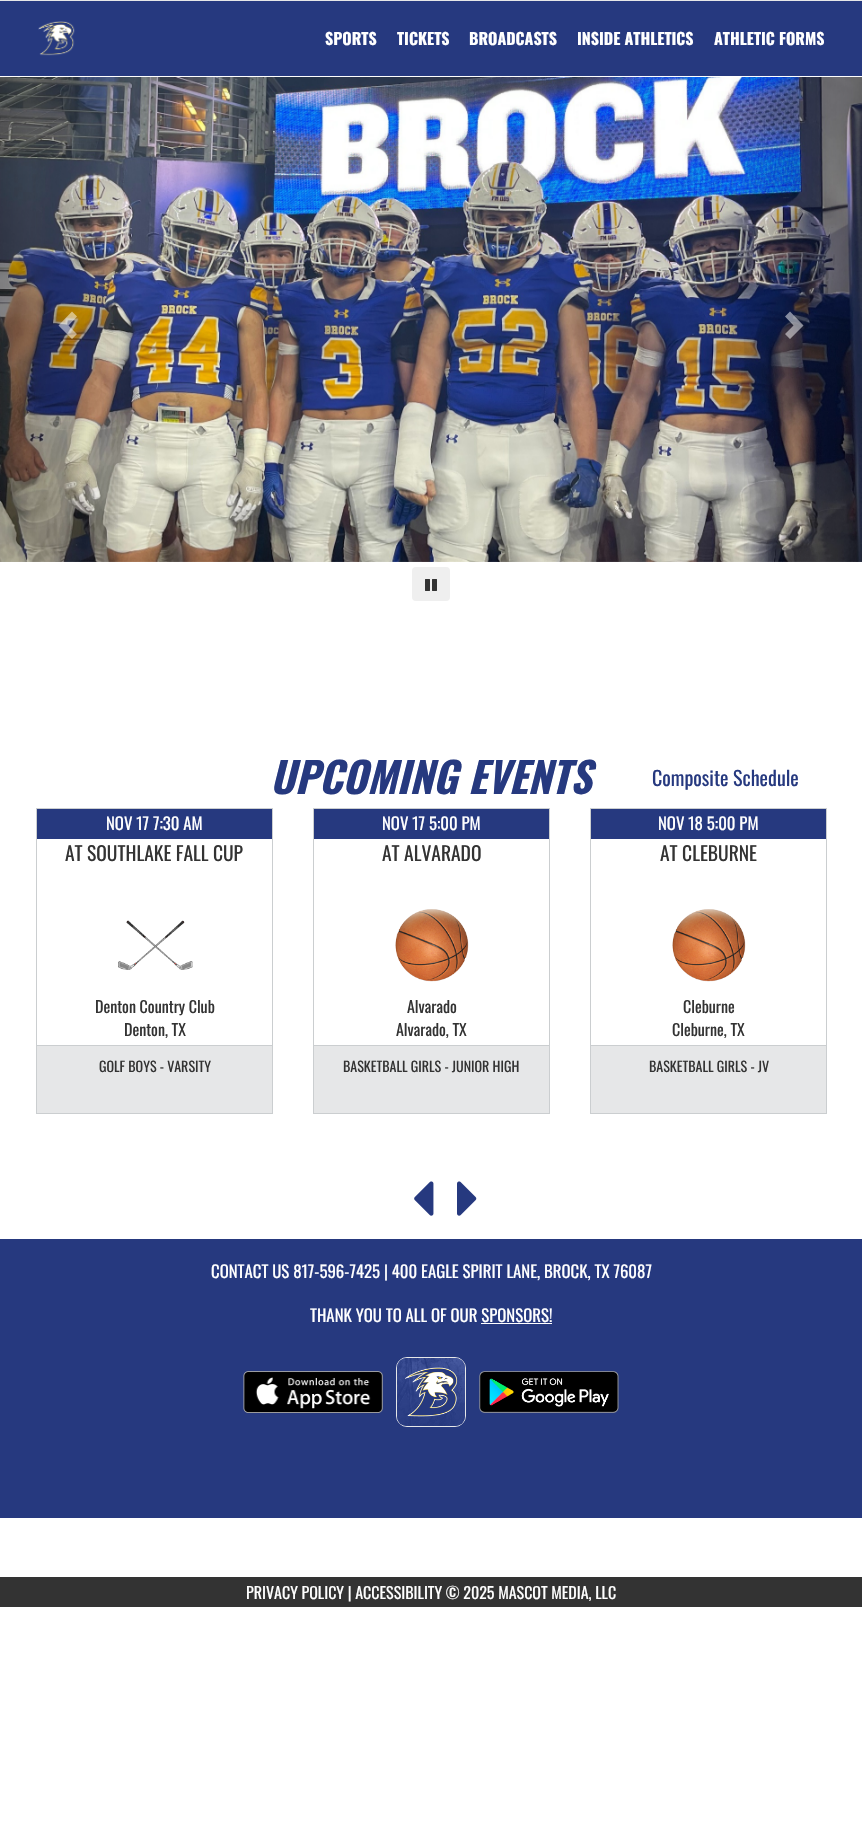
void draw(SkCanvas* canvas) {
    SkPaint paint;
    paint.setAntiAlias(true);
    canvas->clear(0xFFFFFFFF);
    paint.setColor(0xFFE6E7E8);
    canvas->drawRect(SkRect::MakeXYWH(0, 0, 862, 1), paint);
    paint.setColor(0xFF26397F);
    canvas->drawRect(SkRect::MakeXYWH(0, 1, 862, 75), paint);
    canvas->drawImageRect(SkImages::DeferredFromEncodedData(SkData::MakeFromFileName("img1.png")), SkRect::MakeXYWH(38, 21, 37, 35), SkSamplingOptions());
    SkFont font1(fontMgr->matchFamilyStyle("Oswald", SkFontStyle::Bold()), 16);
    font1.setSubpixel(true);
    paint.setColor(0xFFFFFFFF);
    canvas->drawString("SPORTS", 325, 45, font1, paint);
    canvas->drawString("TICKETS", 397, 45, font1, paint);
    canvas->drawString("BROADCASTS", 469, 45, font1, paint);
    canvas->drawString("INSIDE ATHLETICS", 577, 45, font1, paint);
    canvas->drawString("ATHLETIC FORMS", 714, 45, font1, paint);
    canvas->drawImageRect(SkImages::DeferredFromEncodedData(SkData::MakeFromFileName("img2.png")), SkRect::MakeXYWH(0, 77, 862, 485), SkSamplingOptions());
    {
        const SkColor colors[] = {0x40000000, 0x00000000};
        const float stops[] = {0, 1};
        const SkPoint ends[] = {{0, 320}, {129, 320}};
        paint.setShader(SkGradientShader::MakeLinear(ends, colors, stops, 2, SkTileMode::kClamp));
        paint.setAlpha(255);
    }
    canvas->drawRect(SkRect::MakeXYWH(0, 77, 118, 485), paint);
    paint.setShader(nullptr);
    paint.setColor(0x80FFFFFF);
    canvas->drawPath(SkPathBuilder().moveTo(77, 316.5f).lineTo(68.5f, 325.5f).lineTo(77, 334).lineTo(72, 339).lineTo(58.5f, 325.5f).lineTo(72, 311.5f).close().detach(), paint);
    {
        const SkColor colors[] = {0x00000000, 0x40000000};
        const float stops[] = {0, 1};
        const SkPoint ends[] = {{733, 320}, {862, 320}};
        paint.setShader(SkGradientShader::MakeLinear(ends, colors, stops, 2, SkTileMode::kClamp));
        paint.setAlpha(255);
    }
    canvas->drawRect(SkRect::MakeXYWH(744, 77, 118, 485), paint);
    paint.setShader(nullptr);
    paint.setColor(0x80FFFFFF);
    canvas->drawPath(SkPathBuilder().moveTo(803.5f, 325.5f).lineTo(790, 339).lineTo(785, 334).lineTo(793.5f, 325.5f).lineTo(785, 316.5f).lineTo(790, 311.5f).close().detach(), paint);
    paint.setColor(0xFFEFEFEF);
    canvas->drawRoundRect(SkRect::MakeXYWH(412, 567, 38, 34), 4, 4, paint);
    canvas->drawImageRect(SkImages::DeferredFromEncodedData(SkData::MakeFromFileName("img3.png")), SkRect::MakeXYWH(425, 579, 12, 12), SkSamplingOptions());
    SkFont font2(fontMgr->matchFamilyStyle("Oswald", SkFontStyle::BoldItalic()), 42);
    font2.setSubpixel(true);
    paint.setColor(0xFF26397F);
    canvas->drawString("UPCOMING EVENTS", 270, 794, font2, paint);
    SkFont font3(fontMgr->matchFamilyStyle("Oswald", SkFontStyle::Normal()), 20);
    font3.setSubpixel(true);
    canvas->drawString("Composite Schedule", 652, 786, font3, paint);
    paint.setStyle(SkPaint::kStroke_Style);
    paint.setStrokeWidth(1);
    paint.setColor(0xFFCBCED0);
    canvas->drawRect(SkRect::MakeXYWH(36.5f, 808.5f, 236, 305), paint);
    paint.setStyle(SkPaint::kFill_Style);
    paint.setColor(0xFF26397F);
    canvas->drawRect(SkRect::MakeXYWH(37, 809, 235, 30), paint);
    SkFont font4(fontMgr->matchFamilyStyle("Oswald", SkFontStyle::Normal()), 16.8f);
    font4.setSubpixel(true);
    paint.setColor(0xFFFFFFFF);
    canvas->drawString("NOV 17 7:30 AM", 106, 830, font4, paint);
    SkFont font5(fontMgr->matchFamilyStyle("Oswald", SkFontStyle::Normal()), 19.5f);
    font5.setSubpixel(true);
    paint.setColor(0xFF333333);
    canvas->drawString("AT SOUTHLAKE FALL CUP", 65, 861, font5, paint);
    canvas->drawImageRect(SkImages::DeferredFromEncodedData(SkData::MakeFromFileName("img4.png")), SkRect::MakeXYWH(118, 920, 75, 50), SkSamplingOptions());
    SkFont font6(fontMgr->matchFamilyStyle("Oswald", SkFontStyle::Normal()), 16);
    font6.setSubpixel(true);
    canvas->drawString("Denton Country Club", 95, 1013, font6, paint);
    canvas->drawString("Denton, TX", 124, 1036, font6, paint);
    paint.setColor(0xFFE6E7E8);
    canvas->drawRect(SkRect::MakeXYWH(37, 1046, 235, 67), paint);
    paint.setColor(0xFFCBCED0);
    canvas->drawRect(SkRect::MakeXYWH(37, 1045, 235, 1), paint);
    SkFont font7(fontMgr->matchFamilyStyle("Oswald", SkFontStyle::Normal()), 14);
    font7.setSubpixel(true);
    paint.setColor(0xFF333333);
    canvas->drawString("GOLF BOYS - VARSITY", 99, 1072, font7, paint);
    paint.setStyle(SkPaint::kStroke_Style);
    paint.setColor(0xFFCBCED0);
    canvas->drawRect(SkRect::MakeXYWH(313.5f, 808.5f, 236, 305), paint);
    paint.setStyle(SkPaint::kFill_Style);
    paint.setColor(0xFF26397F);
    canvas->drawRect(SkRect::MakeXYWH(314, 809, 235, 30), paint);
    paint.setColor(0xFFFFFFFF);
    canvas->drawString("NOV 17 5:00 PM", 382, 830, font4, paint);
    paint.setColor(0xFF333333);
    canvas->drawString("AT ALVARADO", 382, 861, font5, paint);
    canvas->drawImageRect(SkImages::DeferredFromEncodedData(SkData::MakeFromFileName("img5.png")), SkRect::MakeXYWH(395, 909, 74, 73), SkSamplingOptions());
    canvas->drawString("Alvarado", 407, 1013, font6, paint);
    canvas->drawString("Alvarado, TX", 396, 1036, font6, paint);
    paint.setColor(0xFFE6E7E8);
    canvas->drawRect(SkRect::MakeXYWH(314, 1046, 235, 67), paint);
    paint.setColor(0xFFCBCED0);
    canvas->drawRect(SkRect::MakeXYWH(314, 1045, 235, 1), paint);
    paint.setColor(0xFF333333);
    canvas->drawString("BASKETBALL GIRLS - JUNIOR HIGH", 343, 1072, font7, paint);
    paint.setStyle(SkPaint::kStroke_Style);
    paint.setColor(0xFFCBCED0);
    canvas->drawRect(SkRect::MakeXYWH(590.5f, 808.5f, 236, 305), paint);
    paint.setStyle(SkPaint::kFill_Style);
    paint.setColor(0xFF26397F);
    canvas->drawRect(SkRect::MakeXYWH(591, 809, 235, 30), paint);
    paint.setColor(0xFFFFFFFF);
    canvas->drawString("NOV 18 5:00 PM", 658, 830, font4, paint);
    paint.setColor(0xFF333333);
    canvas->drawString("AT CLEBURNE", 660, 861, font5, paint);
    canvas->drawImageRect(SkImages::DeferredFromEncodedData(SkData::MakeFromFileName("img5.png")), SkRect::MakeXYWH(672, 909, 74, 73), SkSamplingOptions());
    canvas->drawString("Cleburne", 683, 1013, font6, paint);
    canvas->drawString("Cleburne, TX", 672, 1036, font6, paint);
    paint.setColor(0xFFE6E7E8);
    canvas->drawRect(SkRect::MakeXYWH(591, 1046, 235, 67), paint);
    paint.setColor(0xFFCBCED0);
    canvas->drawRect(SkRect::MakeXYWH(591, 1045, 235, 1), paint);
    paint.setColor(0xFF333333);
    canvas->drawString("BASKETBALL GIRLS - JV", 649, 1072, font7, paint);
    canvas->drawImageRect(SkImages::DeferredFromEncodedData(SkData::MakeFromFileName("img6.png")), SkRect::MakeXYWH(414, 1181, 20, 35), SkSamplingOptions());
    canvas->drawImageRect(SkImages::DeferredFromEncodedData(SkData::MakeFromFileName("img7.png")), SkRect::MakeXYWH(457, 1181, 20, 35), SkSamplingOptions());
    paint.setColor(0xFF26397F);
    canvas->drawRect(SkRect::MakeXYWH(0, 1239, 862, 279), paint);
    paint.setColor(0xFFFFFFFF);
    canvas->drawString("CONTACT US 817-596-7425 | 400 EAGLE SPIRIT LANE, BROCK, TX 76087", 211, 1278, font4, paint);
    canvas->drawString("THANK YOU TO ALL OF OUR SPONSORS!", 310, 1322, font4, paint);
    canvas->drawRect(SkRect::MakeXYWH(481, 1323, 71, 1), paint);
    canvas->drawImageRect(SkImages::DeferredFromEncodedData(SkData::MakeFromFileName("img8.png")), SkRect::MakeXYWH(243, 1371, 140, 42), SkSamplingOptions());
    paint.setStyle(SkPaint::kStroke_Style);
    paint.setColor(0xFFE6E7E8);
    canvas->drawRoundRect(SkRect::MakeXYWH(396.5f, 1357.5f, 69, 69), 10.5f, 10.5f, paint);
    canvas->drawImageRect(SkImages::DeferredFromEncodedData(SkData::MakeFromFileName("img9.png")), SkRect::MakeXYWH(397, 1358, 68, 68), SkSamplingOptions());
    canvas->drawImageRect(SkImages::DeferredFromEncodedData(SkData::MakeFromFileName("img10.png")), SkRect::MakeXYWH(479, 1371, 140, 42), SkSamplingOptions());
    paint.setStyle(SkPaint::kFill_Style);
    paint.setColor(0xFF333333);
    canvas->drawRect(SkRect::MakeXYWH(0, 1577, 862, 30), paint);
    paint.setColor(0xFFFFFFFF);
    canvas->drawString("PRIVACY POLICY | ACCESSIBILITY © 2025 MASCOT MEDIA, LLC", 246, 1599, font6, paint);
}
